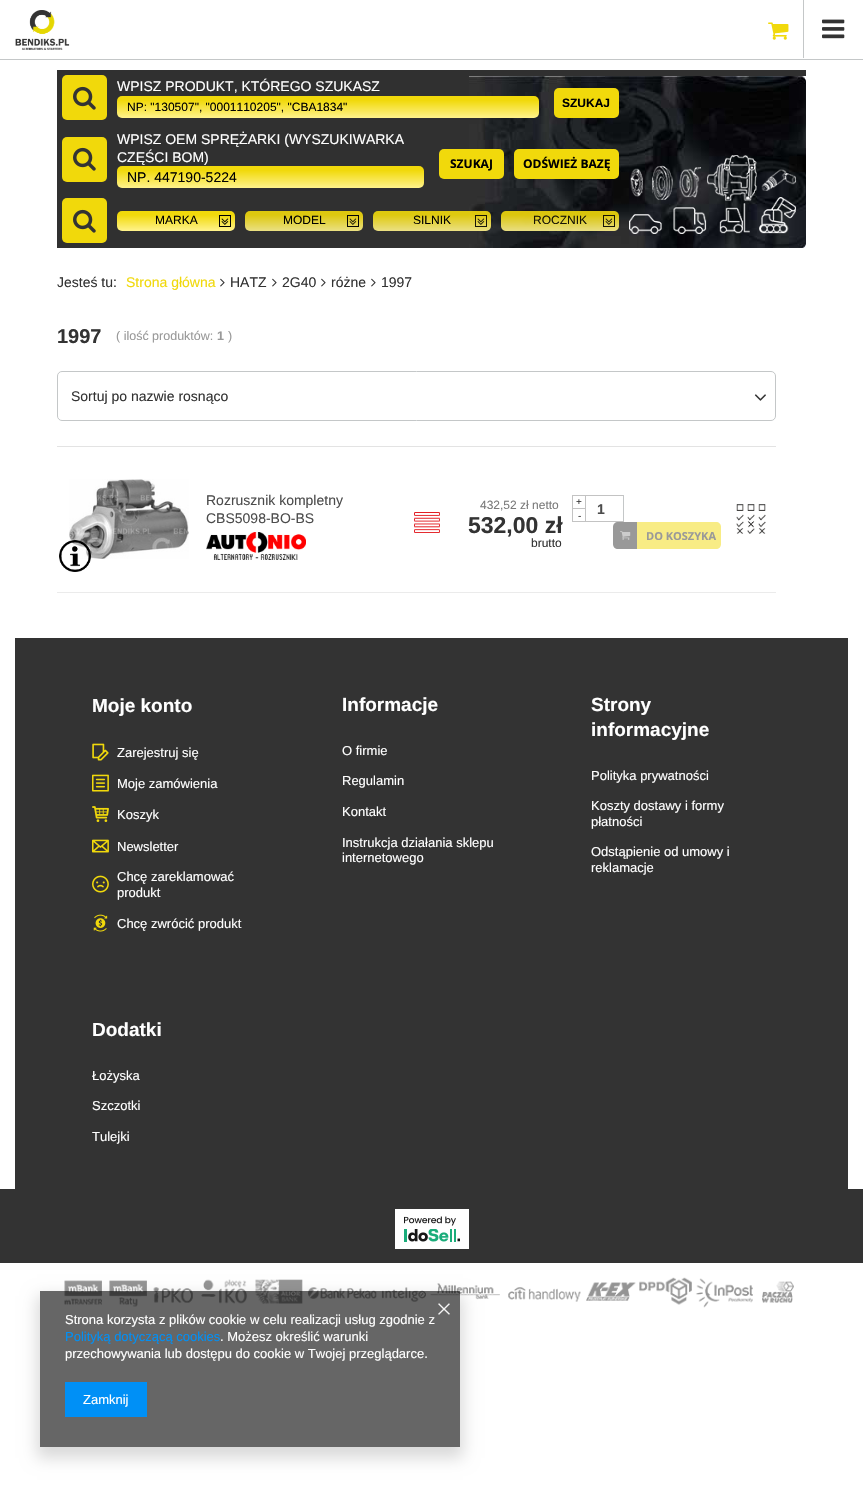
void draw(SkCanvas* canvas) {
    SkPaint paint;
    paint.setAntiAlias(true);
    canvas->clear(0xFFFFFFFF);
    paint.setColor(0xFFC4C7C8);
    canvas->drawRect(SkRect::MakeXYWH(0, 59, 863, 1), paint);
    canvas->drawImageRect(SkImages::DeferredFromEncodedData(SkData::MakeFromFileName("img1.png")), SkRect::MakeXYWH(15, 10, 55, 40), SkSamplingOptions());
    canvas->drawImageRect(SkImages::DeferredFromEncodedData(SkData::MakeFromFileName("img2.png")), SkRect::MakeXYWH(768, 22, 21, 18), SkSamplingOptions());
    canvas->drawRect(SkRect::MakeXYWH(803, 0, 1, 58), paint);
    canvas->drawImageRect(SkImages::DeferredFromEncodedData(SkData::MakeFromFileName("img3.png")), SkRect::MakeXYWH(822, 19, 23, 20), SkSamplingOptions());
    paint.setColor(0xFF303030);
    canvas->drawRect(SkRect::MakeXYWH(57, 70, 749, 178), paint);
    canvas->drawImageRect(SkImages::DeferredFromEncodedData(SkData::MakeFromFileName("img4.png")), SkRect::MakeXYWH(469, 76, 337, 172), SkSamplingOptions());
    paint.setColor(0xFFF1D90B);
    canvas->drawRoundRect(SkRect::MakeXYWH(62, 75, 45, 45), 5, 5, paint);
    canvas->drawImageRect(SkImages::DeferredFromEncodedData(SkData::MakeFromFileName("img5.png")), SkRect::MakeXYWH(73, 86, 23, 24), SkSamplingOptions());
    SkFont font1(fontMgr->matchFamilyStyle("Liberation Sans", SkFontStyle::Normal()), 14);
    font1.setSubpixel(true);
    paint.setColor(0xFFFFFFFF);
    canvas->drawString("WPISZ PRODUKT, KTÓREGO SZUKASZ", 117, 91, font1, paint);
    {
        const SkColor colors[] = {0xFFFFF38C, 0xFFF1D90B};
        const float stops[] = {0, 0.8f};
        const SkPoint ends[] = {{328, 118}, {328, 96}};
        paint.setShader(SkGradientShader::MakeLinear(ends, colors, stops, 2, SkTileMode::kClamp));
        paint.setAlpha(255);
    }
    canvas->drawRoundRect(SkRect::MakeXYWH(117, 96, 422, 22), 5, 5, paint);
    SkFont font2(fontMgr->matchFamilyStyle("Liberation Sans", SkFontStyle::Normal()), 12);
    font2.setSubpixel(true);
    paint.setShader(nullptr);
    paint.setColor(0xFF000000);
    canvas->drawString("NP: \"130507\", \"0001110205\", \"CBA1834\"", 127, 111, font2, paint);
    paint.setColor(0xFFF1D90B);
    canvas->drawRoundRect(SkRect::MakeXYWH(554, 88, 65, 30), 5, 5, paint);
    SkFont font3(fontMgr->matchFamilyStyle("Liberation Sans", SkFontStyle::Bold()), 12);
    font3.setSubpixel(true);
    paint.setColor(0xFF000000);
    canvas->drawString("SZUKAJ", 562, 107, font3, paint);
    paint.setColor(0xFFF1D90B);
    canvas->drawRoundRect(SkRect::MakeXYWH(62, 137, 45, 45), 5, 5, paint);
    canvas->drawImageRect(SkImages::DeferredFromEncodedData(SkData::MakeFromFileName("img5.png")), SkRect::MakeXYWH(73, 147, 23, 24), SkSamplingOptions());
    paint.setColor(0xFFFFFFFF);
    canvas->drawString("WPISZ OEM SPRĘŻARKI (WYSZUKIWARKA", 117, 144, font1, paint);
    canvas->drawString("CZĘŚCI BOM)", 117, 162, font1, paint);
    {
        const SkColor colors[] = {0xFFFFF38C, 0xFFF1D90B};
        const float stops[] = {0, 0.8f};
        const SkPoint ends[] = {{271, 188}, {271, 166}};
        paint.setShader(SkGradientShader::MakeLinear(ends, colors, stops, 2, SkTileMode::kClamp));
        paint.setAlpha(255);
    }
    canvas->drawRoundRect(SkRect::MakeXYWH(117, 166, 307, 22), 5, 5, paint);
    paint.setShader(nullptr);
    paint.setColor(0xFF000000);
    canvas->drawString("NP. 447190-5224", 127, 182, font1, paint);
    paint.setColor(0xFFF1D90B);
    canvas->drawRoundRect(SkRect::MakeXYWH(439, 149, 65, 30), 5, 5, paint);
    SkFont font4(fontMgr->matchFamilyStyle("Open Sans", SkFontStyle::Bold()), 12);
    font4.setSubpixel(true);
    paint.setColor(0xFF000000);
    canvas->drawString("SZUKAJ", 450, 168, font4, paint);
    paint.setColor(0xFFF1D90B);
    canvas->drawRoundRect(SkRect::MakeXYWH(514, 149, 105, 30), 5, 5, paint);
    paint.setColor(0xFF000000);
    canvas->drawString("ODŚWIEŻ BAZĘ", 523, 168, font4, paint);
    canvas->drawImageRect(SkImages::DeferredFromEncodedData(SkData::MakeFromFileName("img6.png")), SkRect::MakeXYWH(629, 155, 167, 79), SkSamplingOptions());
    paint.setColor(0xFFF1D90B);
    canvas->drawRoundRect(SkRect::MakeXYWH(62, 198, 45, 45), 5, 5, paint);
    canvas->drawImageRect(SkImages::DeferredFromEncodedData(SkData::MakeFromFileName("img5.png")), SkRect::MakeXYWH(73, 209, 23, 24), SkSamplingOptions());
    {
        const SkColor colors[] = {0xFFFFF38C, 0xFFF1D90B};
        const float stops[] = {0, 0.8f};
        const SkPoint ends[] = {{176, 231}, {176, 211}};
        paint.setShader(SkGradientShader::MakeLinear(ends, colors, stops, 2, SkTileMode::kClamp));
        paint.setAlpha(255);
    }
    canvas->drawRoundRect(SkRect::MakeXYWH(117, 211, 118, 20), 5, 5, paint);
    paint.setShader(nullptr);
    paint.setColor(0xFF000000);
    canvas->drawString("MARKA", 155, 224, font2, paint);
    paint.setStyle(SkPaint::kStroke_Style);
    paint.setStrokeWidth(1);
    canvas->drawRect(SkRect::MakeXYWH(219.5f, 215.5f, 11, 11), paint);
    canvas->drawImageRect(SkImages::DeferredFromEncodedData(SkData::MakeFromFileName("img7.png")), SkRect::MakeXYWH(221, 218, 8, 7), SkSamplingOptions());
    paint.setStyle(SkPaint::kFill_Style);
    {
        const SkColor colors[] = {0xFFEAE083, 0xFFDEC80F};
        const float stops[] = {0, 0.8f};
        const SkPoint ends[] = {{304, 231}, {304, 211}};
        paint.setShader(SkGradientShader::MakeLinear(ends, colors, stops, 2, SkTileMode::kClamp));
        paint.setAlpha(255);
    }
    canvas->drawRoundRect(SkRect::MakeXYWH(245, 211, 118, 20), 5, 5, paint);
    paint.setShader(nullptr);
    paint.setColor(0xFF000000);
    canvas->drawString("MODEL", 283, 224, font2, paint);
    paint.setStyle(SkPaint::kStroke_Style);
    paint.setColor(0xFF050505);
    canvas->drawRect(SkRect::MakeXYWH(347.5f, 215.5f, 11, 11), paint);
    canvas->drawImageRect(SkImages::DeferredFromEncodedData(SkData::MakeFromFileName("img8.png")), SkRect::MakeXYWH(349, 218, 8, 7), SkSamplingOptions());
    paint.setStyle(SkPaint::kFill_Style);
    {
        const SkColor colors[] = {0xE6FFF38C, 0xE6F1D90B};
        const float stops[] = {0, 0.8f};
        const SkPoint ends[] = {{432, 231}, {432, 211}};
        paint.setShader(SkGradientShader::MakeLinear(ends, colors, stops, 2, SkTileMode::kClamp));
        paint.setAlpha(255);
    }
    canvas->drawRoundRect(SkRect::MakeXYWH(373, 211, 118, 20), 5, 5, paint);
    paint.setShader(nullptr);
    paint.setColor(0xFF000000);
    canvas->drawString("SILNIK", 413, 224, font2, paint);
    paint.setStyle(SkPaint::kStroke_Style);
    paint.setColor(0xE6000000);
    canvas->drawRect(SkRect::MakeXYWH(475.5f, 215.5f, 11, 11), paint);
    canvas->drawImageRect(SkImages::DeferredFromEncodedData(SkData::MakeFromFileName("img9.png")), SkRect::MakeXYWH(477, 218, 8, 7), SkSamplingOptions());
    paint.setStyle(SkPaint::kFill_Style);
    paint.setColor(0xFF161405);
    canvas->drawString("ROCZNIK", 533, 224, font2, paint);
    paint.setStyle(SkPaint::kStroke_Style);
    paint.setColor(0xE6000000);
    canvas->drawRect(SkRect::MakeXYWH(603.5f, 215.5f, 11, 11), paint);
    canvas->drawImageRect(SkImages::DeferredFromEncodedData(SkData::MakeFromFileName("img10.png")), SkRect::MakeXYWH(605, 218, 8, 7), SkSamplingOptions());
    paint.setStyle(SkPaint::kFill_Style);
    paint.setColor(0xFF333333);
    canvas->drawString("Jesteś tu:", 57, 287, font1, paint);
    paint.setColor(0xFFF1D90B);
    canvas->drawString("Strona główna", 126, 287, font1, paint);
    canvas->drawImageRect(SkImages::DeferredFromEncodedData(SkData::MakeFromFileName("img11.png")), SkRect::MakeXYWH(220, 278, 5, 9), SkSamplingOptions());
    paint.setColor(0xFF333333);
    canvas->drawString("HATZ", 230, 287, font1, paint);
    canvas->drawImageRect(SkImages::DeferredFromEncodedData(SkData::MakeFromFileName("img11.png")), SkRect::MakeXYWH(272, 278, 5, 9), SkSamplingOptions());
    canvas->drawString("2G40", 282, 287, font1, paint);
    canvas->drawImageRect(SkImages::DeferredFromEncodedData(SkData::MakeFromFileName("img11.png")), SkRect::MakeXYWH(321, 278, 5, 9), SkSamplingOptions());
    canvas->drawString("różne", 331, 287, font1, paint);
    canvas->drawImageRect(SkImages::DeferredFromEncodedData(SkData::MakeFromFileName("img11.png")), SkRect::MakeXYWH(371, 278, 5, 9), SkSamplingOptions());
    canvas->drawString("1997", 381, 287, font1, paint);
    SkFont font5(fontMgr->matchFamilyStyle("Liberation Sans", SkFontStyle::Bold()), 20);
    font5.setSubpixel(true);
    canvas->drawString("1997", 57, 343, font5, paint);
    SkFont font6(fontMgr->matchFamilyStyle("Liberation Sans", SkFontStyle::Normal()), 12.5f);
    font6.setSubpixel(true);
    paint.setColor(0xFF999999);
    canvas->drawString("( ilość produktów:", 116, 340, font6, paint);
    SkFont font7(fontMgr->matchFamilyStyle("Liberation Sans", SkFontStyle::Bold()), 12.5f);
    font7.setSubpixel(true);
    canvas->drawString("1", 217, 340, font7, paint);
    canvas->drawString(")", 228, 340, font6, paint);
    paint.setStyle(SkPaint::kStroke_Style);
    paint.setColor(0xFFC4C7C8);
    canvas->drawRoundRect(SkRect::MakeXYWH(57.5f, 371.5f, 718, 49), 4.5f, 4.5f, paint);
    paint.setStyle(SkPaint::kFill_Style);
    paint.setColor(0xFF333333);
    canvas->drawString("Sortuj po nazwie rosnąco", 71, 401, font1, paint);
    canvas->drawImageRect(SkImages::DeferredFromEncodedData(SkData::MakeFromFileName("img12.png")), SkRect::MakeXYWH(754, 394, 12, 7), SkSamplingOptions());
    paint.setColor(0xFFE3E3E3);
    canvas->drawRect(SkRect::MakeXYWH(57, 446, 719, 1), paint);
    paint.setColor(0xFFEBEBEB);
    canvas->drawRect(SkRect::MakeXYWH(57, 592, 719, 1), paint);
    canvas->drawImageRect(SkImages::DeferredFromEncodedData(SkData::MakeFromFileName("img13.png")), SkRect::MakeXYWH(69, 479, 120, 80), SkSamplingOptions());
    canvas->drawImageRect(SkImages::DeferredFromEncodedData(SkData::MakeFromFileName("img14.png")), SkRect::MakeXYWH(59, 540, 32, 32), SkSamplingOptions());
    paint.setColor(0xFF4C4C4C);
    canvas->drawString("Rozrusznik kompletny", 206, 505, font1, paint);
    canvas->drawString("CBS5098-BO-BS", 206, 523, font1, paint);
    canvas->drawImageRect(SkImages::DeferredFromEncodedData(SkData::MakeFromFileName("img15.png")), SkRect::MakeXYWH(206, 532, 100, 28), SkSamplingOptions());
    canvas->drawImageRect(SkImages::DeferredFromEncodedData(SkData::MakeFromFileName("img16.png")), SkRect::MakeXYWH(414, 512, 26, 21), SkSamplingOptions());
    paint.setColor(0xFF7A7A7A);
    canvas->drawString("432,52 zł netto", 480, 509, font2, paint);
    SkFont font8(fontMgr->matchFamilyStyle("Liberation Sans", SkFontStyle::Bold()), 23);
    font8.setSubpixel(true);
    paint.setColor(0xFF333333);
    canvas->drawString("532,00 zł", 468, 533, font8, paint);
    canvas->drawString("brutto", 531, 547, font2, paint);
    paint.setColor(0xFFC3C3C3);
    canvas->drawRect(SkRect::MakeXYWH(585, 495, 39, 1), paint);
    paint.setStyle(SkPaint::kStroke_Style);
    canvas->drawRect(SkRect::MakeXYWH(572.5f, 495.5f, 13, 13), paint);
    SkFont font9(fontMgr->matchFamilyStyle("Liberation Sans", SkFontStyle::Normal()), 10);
    font9.setSubpixel(true);
    paint.setStyle(SkPaint::kFill_Style);
    paint.setColor(0xFF333333);
    canvas->drawString("+", 576, 505, font9, paint);
    paint.setColor(0xFFC4C7C8);
    canvas->drawRect(SkRect::MakeXYWH(623, 495, 1, 27), paint);
    paint.setColor(0xFFC3C3C3);
    canvas->drawRect(SkRect::MakeXYWH(585, 521, 39, 1), paint);
    SkFont font10(fontMgr->matchFamilyStyle("Liberation Sans", SkFontStyle::Bold()), 14);
    font10.setSubpixel(true);
    paint.setColor(0xFF4C4C4C);
    canvas->drawString("1", 597, 514, font10, paint);
    paint.setStyle(SkPaint::kStroke_Style);
    paint.setColor(0xFFC3C3C3);
    canvas->drawRect(SkRect::MakeXYWH(572.5f, 508.5f, 13, 13), paint);
    paint.setStyle(SkPaint::kFill_Style);
    paint.setColor(0xFF333333);
    canvas->drawString("-", 578, 519, font9, paint);
    paint.setColor(0xFFF8EC85);
    canvas->drawPath(SkPathBuilder().moveTo(621, 522).lineTo(716, 522).cubicTo(719, 522, 721, 524, 721, 527).lineTo(721, 544).cubicTo(721, 547, 719, 549, 716, 549).lineTo(621, 549).close().detach(), paint);
    paint.setColor(0xFF999999);
    canvas->drawPath(SkPathBuilder().moveTo(618, 522).lineTo(637, 522).lineTo(637, 549).lineTo(618, 549).cubicTo(615, 549, 613, 547, 613, 544).lineTo(613, 527).cubicTo(613, 524, 615, 522, 618, 522).close().detach(), paint);
    canvas->drawImageRect(SkImages::DeferredFromEncodedData(SkData::MakeFromFileName("img17.png")), SkRect::MakeXYWH(620, 531, 11, 9), SkSamplingOptions());
    SkFont font11(fontMgr->matchFamilyStyle("Open Sans", SkFontStyle::Bold()), 11);
    font11.setSubpixel(true);
    canvas->drawString("DO KOSZYKA", 646, 540, font11, paint);
    canvas->drawImageRect(SkImages::DeferredFromEncodedData(SkData::MakeFromFileName("img18.png")), SkRect::MakeXYWH(736, 504, 30, 30), SkSamplingOptions());
    paint.setColor(0xFF333333);
    canvas->drawRect(SkRect::MakeXYWH(15, 638, 833, 551), paint);
    SkFont font12(fontMgr->matchFamilyStyle("Liberation Sans", SkFontStyle::Bold()), 19);
    font12.setSubpixel(true);
    paint.setColor(0xFFFFFFFF);
    canvas->drawString("Moje konto", 92, 712, font12, paint);
    canvas->drawImageRect(SkImages::DeferredFromEncodedData(SkData::MakeFromFileName("img19.png")), SkRect::MakeXYWH(92, 743, 17, 18), SkSamplingOptions());
    SkFont font13(fontMgr->matchFamilyStyle("Liberation Sans", SkFontStyle::Normal()), 13);
    font13.setSubpixel(true);
    canvas->drawString("Zarejestruj się", 117, 757, font13, paint);
    canvas->drawImageRect(SkImages::DeferredFromEncodedData(SkData::MakeFromFileName("img20.png")), SkRect::MakeXYWH(92, 774, 17, 18), SkSamplingOptions());
    canvas->drawString("Moje zamówienia", 117, 788, font13, paint);
    canvas->drawImageRect(SkImages::DeferredFromEncodedData(SkData::MakeFromFileName("img21.png")), SkRect::MakeXYWH(92, 806, 17, 16), SkSamplingOptions());
    canvas->drawString("Koszyk", 117, 819, font13, paint);
    canvas->drawImageRect(SkImages::DeferredFromEncodedData(SkData::MakeFromFileName("img22.png")), SkRect::MakeXYWH(92, 839, 17, 14), SkSamplingOptions());
    canvas->drawString("Newsletter", 117, 851, font13, paint);
    canvas->drawImageRect(SkImages::DeferredFromEncodedData(SkData::MakeFromFileName("img23.png")), SkRect::MakeXYWH(92, 875, 17, 18), SkSamplingOptions());
    canvas->drawString("Chcę zareklamować", 117, 881, font13, paint);
    canvas->drawString("produkt", 117, 897, font13, paint);
    canvas->drawImageRect(SkImages::DeferredFromEncodedData(SkData::MakeFromFileName("img24.png")), SkRect::MakeXYWH(93, 914, 15, 18), SkSamplingOptions());
    canvas->drawString("Chcę zwrócić produkt", 117, 928, font13, paint);
    canvas->drawString("Informacje", 342, 711, font12, paint);
    canvas->drawString("O firmie", 342, 755, font13, paint);
    canvas->drawString("Regulamin", 342, 785, font13, paint);
    canvas->drawString("Kontakt", 342, 816, font13, paint);
    canvas->drawString("Instrukcja działania sklepu", 342, 847, font13, paint);
    canvas->drawString("internetowego", 342, 862, font13, paint);
    canvas->drawString("Strony", 591, 711, font12, paint);
    canvas->drawString("informacyjne", 591, 736, font12, paint);
    canvas->drawString("Polityka prywatności", 591, 780, font13, paint);
    canvas->drawString("Koszty dostawy i formy", 591, 810, font13, paint);
    canvas->drawString("płatności", 591, 826, font13, paint);
    canvas->drawString("Odstąpienie od umowy i", 591, 856, font13, paint);
    canvas->drawString("reklamacje", 591, 872, font13, paint);
    canvas->drawString("Dodatki", 92, 1036, font12, paint);
    canvas->drawString("Łożyska", 92, 1080, font13, paint);
    canvas->drawString("Szczotki", 92, 1110, font13, paint);
    canvas->drawString("Tulejki", 92, 1141, font13, paint);
    paint.setColor(0xFF333333);
    canvas->drawRect(SkRect::MakeXYWH(0, 1189, 863, 74), paint);
    canvas->drawImageRect(SkImages::DeferredFromEncodedData(SkData::MakeFromFileName("img25.png")), SkRect::MakeXYWH(395, 1209, 74, 40), SkSamplingOptions());
    canvas->drawImageRect(SkImages::DeferredFromEncodedData(SkData::MakeFromFileName("img26.png")), SkRect::MakeXYWH(64, 1277, 730, 31), SkSamplingOptions());
    canvas->save();
    canvas->clipPath(SkPathBuilder(SkPathFillType::kEvenOdd).moveTo(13, 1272).lineTo(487, 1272).lineTo(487, 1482).lineTo(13, 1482).close().moveTo(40, 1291).lineTo(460, 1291).lineTo(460, 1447).lineTo(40, 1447).close().detach(), true);
    paint.setColor(0x26000000);
    paint.setMaskFilter(SkMaskFilter::MakeBlur(kNormal_SkBlurStyle, 7.5f));
    canvas->drawRect(SkRect::MakeXYWH(37, 1296, 426, 162), paint);
    paint.setMaskFilter(nullptr);
    canvas->restore();
    paint.setColor(0x99000000);
    canvas->drawRect(SkRect::MakeXYWH(40, 1291, 420, 156), paint);
    canvas->drawImageRect(SkImages::DeferredFromEncodedData(SkData::MakeFromFileName("img27.png")), SkRect::MakeXYWH(438, 1303, 12, 12), SkSamplingOptions());
    paint.setColor(0xFFFFFFFF);
    canvas->drawString("Strona korzysta z plików cookie w celu realizacji usług zgodnie z", 65, 1324, font13, paint);
    paint.setColor(0xFF0090F6);
    canvas->drawString("Polityką dotyczącą cookies", 65, 1341, font13, paint);
    paint.setColor(0xFFFFFFFF);
    canvas->drawString(". Możesz określić warunki", 220, 1341, font13, paint);
    canvas->drawString("przechowywania lub dostępu do cookie w Twojej przeglądarce.", 65, 1358, font13, paint);
    paint.setColor(0xFF0090F6);
    canvas->drawRect(SkRect::MakeXYWH(65, 1382, 82, 35), paint);
    paint.setColor(0xFFFFFFFF);
    canvas->drawString("Zamknij", 83, 1404, font13, paint);
}
